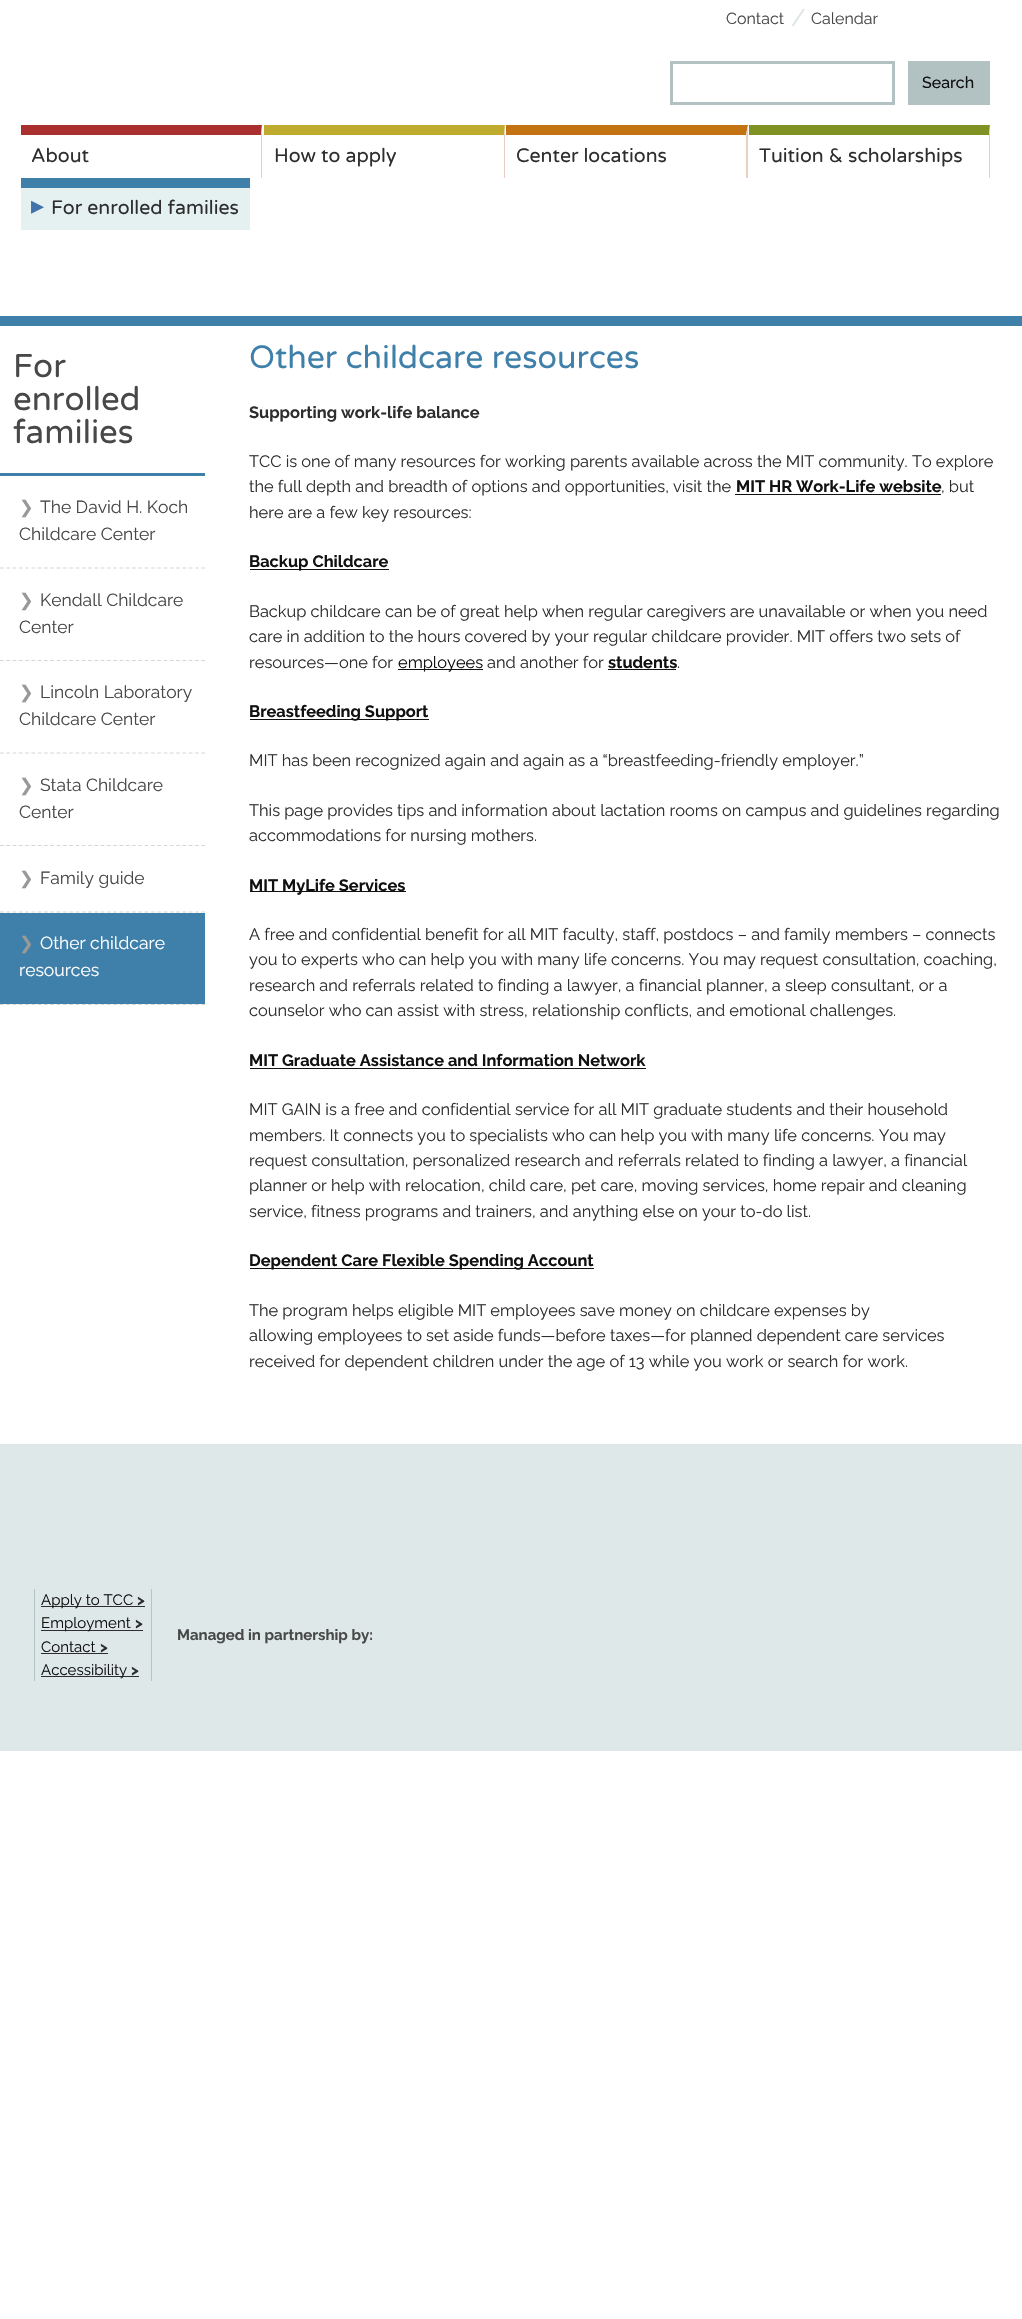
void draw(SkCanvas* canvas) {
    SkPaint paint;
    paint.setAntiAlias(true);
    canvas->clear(0xFFFFFFFF);
    SkFont font1(fontMgr->matchFamilyStyle("Raleway", SkFontStyle::Normal()), 16);
    font1.setSubpixel(true);
    paint.setColor(0xFF484848);
    canvas->drawString("Contact", 726, 24, font1, paint);
    SkFont font2(fontMgr->matchFamilyStyle("Raleway", SkFontStyle::Normal()), 24);
    font2.setSubpixel(true);
    paint.setColor(0xFFDDE3E3);
    canvas->drawString("/", 791, 26, font2, paint);
    paint.setColor(0xFF484848);
    canvas->drawString("Calendar", 811, 24, font1, paint);
    paint.setStyle(SkPaint::kStroke_Style);
    paint.setStrokeWidth(3);
    paint.setColor(0xFFB2C1C1);
    canvas->drawRect(SkRect::MakeXYWH(671.5f, 62.5f, 222, 41), paint);
    paint.setStyle(SkPaint::kFill_Style);
    canvas->drawRect(SkRect::MakeXYWH(908, 61, 82, 44), paint);
    SkFont font3(fontMgr->matchFamilyStyle("Raleway", SkFontStyle(500, SkFontStyle::kNormal_Width, SkFontStyle::kUpright_Slant)), 16);
    font3.setSubpixel(true);
    paint.setColor(0xFF111111);
    canvas->drawString("Search", 922, 88, font3, paint);
    paint.setColor(0xFFAA2F2F);
    canvas->drawPath(SkPathBuilder().moveTo(21, 125).lineTo(262, 125).lineTo(261, 135).lineTo(21, 135).close().detach(), paint);
    paint.setColor(0xFFE8CFC1);
    canvas->drawPath(SkPathBuilder().moveTo(262, 125).lineTo(262, 178).lineTo(261, 178).lineTo(261, 135).close().detach(), paint);
    SkFont font4(fontMgr->matchFamilyStyle("Varela Round", SkFontStyle::Normal()), 19.5f);
    font4.setSubpixel(true);
    paint.setColor(0xFF2E2E2E);
    canvas->drawString("About", 31, 162, font4, paint);
    paint.setColor(0xFFBFAC2E);
    canvas->drawPath(SkPathBuilder().moveTo(264, 125).lineTo(505, 125).lineTo(504, 135).lineTo(264, 135).close().detach(), paint);
    paint.setColor(0xFFE8CFC1);
    canvas->drawPath(SkPathBuilder().moveTo(505, 125).lineTo(505, 178).lineTo(504, 178).lineTo(504, 135).close().detach(), paint);
    paint.setColor(0xFF2E2E2E);
    canvas->drawString("How to apply", 274, 162, font4, paint);
    paint.setColor(0xFFC47312);
    canvas->drawPath(SkPathBuilder().moveTo(506, 125).lineTo(748, 125).lineTo(746, 135).lineTo(506, 135).close().detach(), paint);
    paint.setColor(0xFFE8CFC1);
    canvas->drawPath(SkPathBuilder().moveTo(748, 125).lineTo(748, 178).lineTo(746, 178).lineTo(746, 135).close().detach(), paint);
    paint.setColor(0xFF2E2E2E);
    canvas->drawString("Center locations", 516, 162, font4, paint);
    paint.setColor(0xFF819225);
    canvas->drawPath(SkPathBuilder().moveTo(749, 125).lineTo(990, 125).lineTo(989, 135).lineTo(749, 135).close().detach(), paint);
    paint.setColor(0xFFE8CFC1);
    canvas->drawPath(SkPathBuilder().moveTo(990, 125).lineTo(990, 178).lineTo(989, 178).lineTo(989, 135).close().detach(), paint);
    paint.setColor(0xFF2E2E2E);
    canvas->drawString("Tuition & scholarships", 759, 162, font4, paint);
    paint.setColor(0xFFE5F1F1);
    canvas->drawRect(SkRect::MakeXYWH(21, 188, 229, 42), paint);
    paint.setColor(0xFF3F80AA);
    canvas->drawRect(SkRect::MakeXYWH(21, 178, 229, 10), paint);
    SkFont font5(fontMgr->matchFamilyStyle("DejaVu Sans", SkFontStyle::Normal()), 26);
    font5.setSubpixel(true);
    paint.setColor(0xFF3F73AA);
    canvas->drawString("▸", 31, 214, font5, paint);
    paint.setColor(0xFF2E2E2E);
    canvas->drawString("For enrolled families", 51, 214, font4, paint);
    paint.setColor(0xFF3F80AA);
    canvas->drawRect(SkRect::MakeXYWH(0, 316, 1022, 10), paint);
    canvas->drawRect(SkRect::MakeXYWH(0, 473, 205, 3), paint);
    SkFont font6(fontMgr->matchFamilyStyle("Varela Round", SkFontStyle::Normal()), 33);
    font6.setSubpixel(true);
    paint.setColor(0xFF484848);
    canvas->drawString("For", 13, 377, font6, paint);
    canvas->drawString("enrolled", 13, 410, font6, paint);
    canvas->drawString("families", 13, 443, font6, paint);
    paint.setStyle(SkPaint::kStroke_Style);
    paint.setStrokeWidth(1.2f);
    paint.setColor(0xFFD6D6D6);
    paint.setPathEffect(SkDashPathEffect::Make({{3.75f, 2.54f}}, 0));
    canvas->drawPath(SkPathBuilder().moveTo(0, 568).lineTo(205, 568).detach(), paint);
    paint.setPathEffect(nullptr);
    SkFont font7(fontMgr->matchFamilyStyle("DejaVu Sans", SkFontStyle::Normal()), 17.5f);
    font7.setSubpixel(true);
    paint.setStyle(SkPaint::kFill_Style);
    paint.setColor(0xFF9B9898);
    canvas->drawString("❯", 19, 513, font7, paint);
    SkFont font8(fontMgr->matchFamilyStyle("Raleway", SkFontStyle::Normal()), 17.5f);
    font8.setSubpixel(true);
    paint.setColor(0xFF484848);
    canvas->drawString("The David H. Koch", 40, 513, font8, paint);
    canvas->drawString("Childcare Center", 19, 540, font8, paint);
    paint.setStyle(SkPaint::kStroke_Style);
    paint.setColor(0xFFD6D6D6);
    paint.setPathEffect(SkDashPathEffect::Make({{3.75f, 2.54f}}, 0));
    canvas->drawPath(SkPathBuilder().moveTo(0, 660.5f).lineTo(205, 660.5f).detach(), paint);
    paint.setPathEffect(nullptr);
    paint.setStyle(SkPaint::kFill_Style);
    paint.setColor(0xFF9B9898);
    canvas->drawString("❯", 19, 606, font7, paint);
    paint.setColor(0xFF484848);
    canvas->drawString("Kendall Childcare", 40, 606, font8, paint);
    canvas->drawString("Center", 19, 633, font8, paint);
    paint.setStyle(SkPaint::kStroke_Style);
    paint.setColor(0xFFD6D6D6);
    paint.setPathEffect(SkDashPathEffect::Make({{3.75f, 2.54f}}, 0));
    canvas->drawPath(SkPathBuilder().moveTo(0, 753).lineTo(205, 753).detach(), paint);
    paint.setPathEffect(nullptr);
    paint.setStyle(SkPaint::kFill_Style);
    paint.setColor(0xFF9B9898);
    canvas->drawString("❯", 19, 698, font7, paint);
    paint.setColor(0xFF484848);
    canvas->drawString("Lincoln Laboratory", 40, 698, font8, paint);
    canvas->drawString("Childcare Center", 19, 725, font8, paint);
    paint.setStyle(SkPaint::kStroke_Style);
    paint.setColor(0xFFD6D6D6);
    paint.setPathEffect(SkDashPathEffect::Make({{3.75f, 2.54f}}, 0));
    canvas->drawPath(SkPathBuilder().moveTo(0, 845.5f).lineTo(205, 845.5f).detach(), paint);
    paint.setPathEffect(nullptr);
    paint.setStyle(SkPaint::kFill_Style);
    paint.setColor(0xFF9B9898);
    canvas->drawString("❯", 19, 791, font7, paint);
    paint.setColor(0xFF484848);
    canvas->drawString("Stata Childcare", 40, 791, font8, paint);
    canvas->drawString("Center", 19, 818, font8, paint);
    paint.setStyle(SkPaint::kStroke_Style);
    paint.setColor(0xFFD6D6D6);
    paint.setPathEffect(SkDashPathEffect::Make({{3.75f, 2.54f}}, 0));
    canvas->drawPath(SkPathBuilder().moveTo(0, 912).lineTo(205, 912).detach(), paint);
    paint.setPathEffect(nullptr);
    paint.setStyle(SkPaint::kFill_Style);
    paint.setColor(0xFF9B9898);
    canvas->drawString("❯", 19, 884, font7, paint);
    paint.setColor(0xFF484848);
    canvas->drawString("Family guide", 40, 884, font8, paint);
    paint.setStyle(SkPaint::kStroke_Style);
    paint.setColor(0xFFD6D6D6);
    paint.setPathEffect(SkDashPathEffect::Make({{3.75f, 2.54f}}, 0));
    canvas->drawPath(SkPathBuilder().moveTo(0, 1004.5f).lineTo(205, 1004.5f).detach(), paint);
    paint.setPathEffect(nullptr);
    paint.setStyle(SkPaint::kFill_Style);
    paint.setColor(0xFF3F80AA);
    canvas->drawRect(SkRect::MakeXYWH(0, 913, 205, 91), paint);
    paint.setColor(0xFF9B9898);
    canvas->drawString("❯", 19, 949, font7, paint);
    paint.setColor(0xFFFFFFFF);
    canvas->drawString("Other childcare", 40, 949, font8, paint);
    canvas->drawString("resources", 19, 976, font8, paint);
    SkFont font9(fontMgr->matchFamilyStyle("Varela Round", SkFontStyle::Normal()), 32);
    font9.setSubpixel(true);
    paint.setColor(0xFF3F80AA);
    canvas->drawString("Other childcare resources", 249, 368, font9, paint);
    SkFont font10(fontMgr->matchFamilyStyle("Raleway", SkFontStyle::Bold()), 16.4f);
    font10.setSubpixel(true);
    paint.setColor(0xFF2E2E2E);
    canvas->drawString("Supporting work-life balance", 249, 418, font10, paint);
    SkFont font11(fontMgr->matchFamilyStyle("Raleway", SkFontStyle::Normal()), 16.4f);
    font11.setSubpixel(true);
    canvas->drawString("TCC is one of many resources for working parents available across the MIT community. To explore", 249, 467, font11, paint);
    canvas->drawString("the full depth and breadth of options and opportunities, visit the", 249, 492, font11, paint);
    paint.setColor(0xFF111111);
    canvas->drawString("MIT HR Work-Life website", 736, 492, font10, paint);
    canvas->drawRect(SkRect::MakeXYWH(735, 494, 206, 1), paint);
    paint.setColor(0xFF2E2E2E);
    canvas->drawString(", but", 941, 492, font11, paint);
    canvas->drawString("here are a few key resources:", 249, 518, font11, paint);
    paint.setColor(0xFF111111);
    canvas->drawRect(SkRect::MakeXYWH(250, 569, 139, 1), paint);
    canvas->drawString("Backup Childcare", 249, 567, font10, paint);
    paint.setColor(0xFF2E2E2E);
    canvas->drawString("Backup childcare can be of great help when regular caregivers are unavailable or when you need", 249, 617, font11, paint);
    canvas->drawString("care in addition to the hours covered by your regular childcare provider. MIT offers two sets of", 249, 642, font11, paint);
    canvas->drawString("resources—one for", 249, 668, font11, paint);
    paint.setColor(0xFF111111);
    canvas->drawRect(SkRect::MakeXYWH(398, 669, 85, 1), paint);
    canvas->drawString("employees", 398, 668, font11, paint);
    paint.setColor(0xFF2E2E2E);
    canvas->drawString("and another for", 487, 668, font11, paint);
    paint.setColor(0xFF111111);
    canvas->drawString("students", 608, 668, font10, paint);
    canvas->drawRect(SkRect::MakeXYWH(608, 669, 68, 1), paint);
    paint.setColor(0xFF2E2E2E);
    canvas->drawString(".", 677, 668, font11, paint);
    paint.setColor(0xFF111111);
    canvas->drawRect(SkRect::MakeXYWH(250, 719, 179, 1), paint);
    canvas->drawString("Breastfeeding Support", 249, 717, font10, paint);
    paint.setColor(0xFF2E2E2E);
    canvas->drawString("MIT has been recognized again and again as a “breastfeeding-friendly employer.”", 249, 766, font11, paint);
    canvas->drawString("This page provides tips and information about lactation rooms on campus and guidelines regarding", 249, 816, font11, paint);
    canvas->drawString("accommodations for nursing mothers.", 249, 841, font11, paint);
    paint.setColor(0xFF111111);
    canvas->drawRect(SkRect::MakeXYWH(250, 891, 156, 1), paint);
    canvas->drawString("MIT MyLife Services", 249, 891, font10, paint);
    paint.setColor(0xFF2E2E2E);
    canvas->drawString("A free and confidential benefit for all MIT faculty, staff, postdocs – and family members – connects", 249, 940, font11, paint);
    canvas->drawString("you to experts who can help you with many life concerns. You may request consultation, coaching,", 249, 965, font11, paint);
    canvas->drawString("research and referrals related to finding a lawyer, a financial planner, a sleep consultant, or a", 249, 991, font11, paint);
    canvas->drawString("counselor who can assist with stress, relationship conflicts, and emotional challenges.", 249, 1016, font11, paint);
    paint.setColor(0xFF111111);
    canvas->drawString("MIT Graduate Assistance and Information Network", 249, 1066, font10, paint);
    canvas->drawRect(SkRect::MakeXYWH(250, 1068, 396, 1), paint);
    paint.setColor(0xFF2E2E2E);
    canvas->drawString("MIT GAIN is a free and confidential service for all MIT graduate students and their household", 249, 1115, font11, paint);
    canvas->drawString("members. It connects you to specialists who can help you with many life concerns. You may", 249, 1141, font11, paint);
    canvas->drawString("request consultation, personalized research and referrals related to finding a lawyer, a financial", 249, 1166, font11, paint);
    canvas->drawString("planner or help with relocation, child care, pet care, moving services, home repair and cleaning", 249, 1191, font11, paint);
    canvas->drawString("service, fitness programs and trainers, and anything else on your to-do list.", 249, 1217, font11, paint);
    paint.setColor(0xFF111111);
    canvas->drawRect(SkRect::MakeXYWH(250, 1268, 344, 1), paint);
    canvas->drawString("Dependent Care Flexible Spending Account", 249, 1266, font10, paint);
    paint.setColor(0xFF2E2E2E);
    canvas->drawString("The program helps eligible MIT employees save money on childcare expenses by", 249, 1316, font11, paint);
    canvas->drawString("allowing employees to set aside funds—before taxes—for planned dependent care services", 249, 1341, font11, paint);
    canvas->drawString("received for dependent children under the age of 13 while you work or search for work.", 249, 1367, font11, paint);
    paint.setColor(0xFFDEE8E8);
    canvas->drawRect(SkRect::MakeXYWH(0, 1444, 1022, 307), paint);
    paint.setColor(0xFFB3C4C4);
    canvas->drawRect(SkRect::MakeXYWH(151, 1589, 1, 92), paint);
    canvas->drawRect(SkRect::MakeXYWH(34, 1589, 1, 92), paint);
    paint.setColor(0xFF2E2E2E);
    canvas->drawRect(SkRect::MakeXYWH(41, 1606, 104, 1), paint);
    SkFont font12(fontMgr->matchFamilyStyle("Raleway", SkFontStyle::Normal()), 15);
    font12.setSubpixel(true);
    paint.setColor(0xFF111111);
    canvas->drawString("Apply to TCC", 41, 1605, font12, paint);
    SkFont font13(fontMgr->matchFamilyStyle("Raleway", SkFontStyle::Bold()), 15);
    font13.setSubpixel(true);
    paint.setColor(0xFF2E2E2E);
    canvas->drawString(">", 137, 1605, font13, paint);
    canvas->drawRect(SkRect::MakeXYWH(41, 1630, 102, 1), paint);
    paint.setColor(0xFF111111);
    canvas->drawString("Employment", 41, 1628, font12, paint);
    paint.setColor(0xFF2E2E2E);
    canvas->drawString(">", 135, 1628, font13, paint);
    paint.setColor(0xFF111111);
    canvas->drawString("Contact", 41, 1652, font12, paint);
    paint.setColor(0xFF2E2E2E);
    canvas->drawRect(SkRect::MakeXYWH(41, 1653, 67, 1), paint);
    canvas->drawString(">", 100, 1652, font13, paint);
    canvas->drawRect(SkRect::MakeXYWH(41, 1676, 98, 1), paint);
    paint.setColor(0xFF111111);
    canvas->drawString("Accessibility", 41, 1675, font12, paint);
    paint.setColor(0xFF2E2E2E);
    canvas->drawString(">", 131, 1675, font13, paint);
    paint.setColor(0xFF484848);
    canvas->drawString("Managed in partnership by:", 177, 1640, font13, paint);
}
